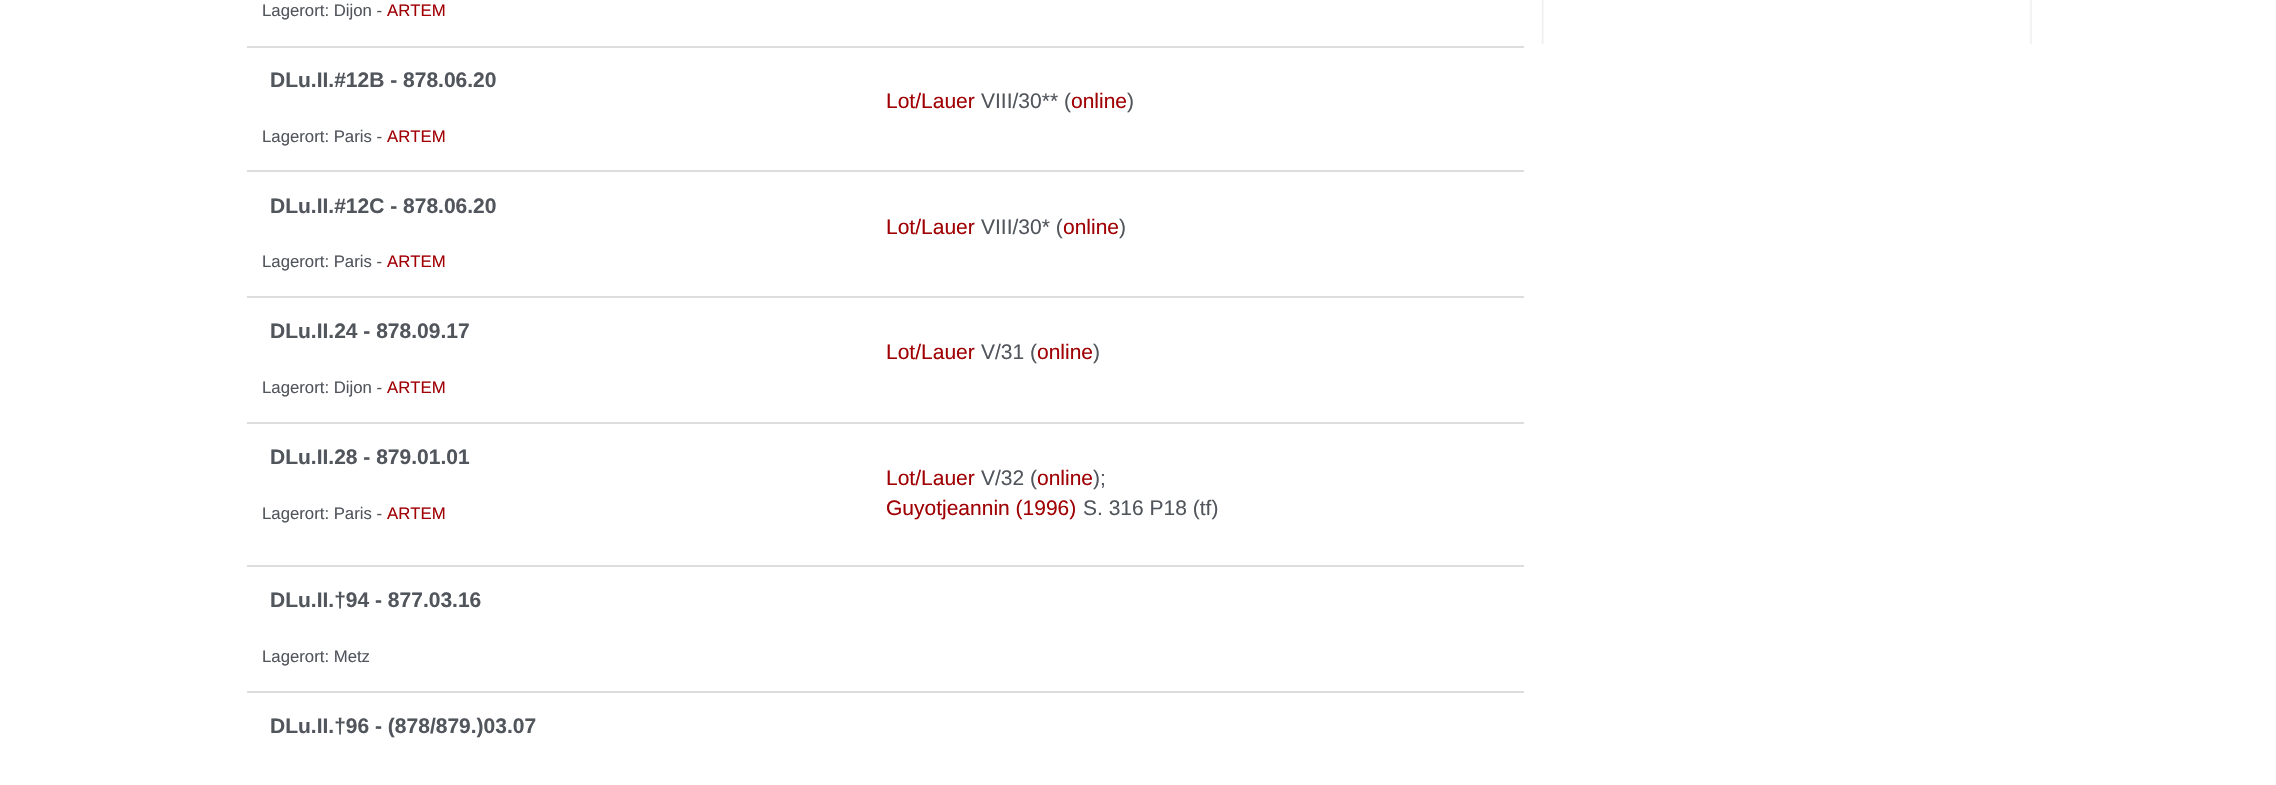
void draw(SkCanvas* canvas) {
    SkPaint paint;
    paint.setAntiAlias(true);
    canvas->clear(0xFFFFFFFF);
    paint.setColor(0xFFDDDDDD);
    canvas->drawRect(SkRect::MakeXYWH(247, 46, 1277, 2), paint);
    SkFont font1(fontMgr->matchFamilyStyle("Liberation Sans", SkFontStyle::Normal()), 16.75f);
    font1.setSubpixel(true);
    paint.setColor(0xFF51555C);
    canvas->drawString("Lagerort: Dijon -", 262, 16, font1, paint);
    paint.setColor(0xFFA00004);
    canvas->drawString("ARTEM", 387, 16, font1, paint);
    paint.setColor(0xFFDDDDDD);
    canvas->drawRect(SkRect::MakeXYWH(247, 170, 1277, 2), paint);
    SkFont font2(fontMgr->matchFamilyStyle("Liberation Sans", SkFontStyle::Bold()), 21);
    font2.setSubpixel(true);
    paint.setColor(0xFF51555C);
    canvas->drawString("DLu.II.#12B - 878.06.20", 270, 87, font2, paint);
    canvas->drawString("Lagerort: Paris -", 262, 142, font1, paint);
    paint.setColor(0xFFA00004);
    canvas->drawString("ARTEM", 387, 142, font1, paint);
    SkFont font3(fontMgr->matchFamilyStyle("Liberation Sans", SkFontStyle::Normal()), 21);
    font3.setSubpixel(true);
    canvas->drawString("Lot/Lauer", 886, 108, font3, paint);
    paint.setColor(0xFF51555C);
    canvas->drawString("VIII/30** (", 981, 108, font3, paint);
    paint.setColor(0xFFA00004);
    canvas->drawString("online", 1071, 108, font3, paint);
    paint.setColor(0xFF51555C);
    canvas->drawString(")", 1127, 108, font3, paint);
    paint.setColor(0xFFDDDDDD);
    canvas->drawRect(SkRect::MakeXYWH(247, 296, 1277, 2), paint);
    paint.setColor(0xFF51555C);
    canvas->drawString("DLu.II.#12C - 878.06.20", 270, 213, font2, paint);
    canvas->drawString("Lagerort: Paris -", 262, 267, font1, paint);
    paint.setColor(0xFFA00004);
    canvas->drawString("ARTEM", 387, 267, font1, paint);
    canvas->drawString("Lot/Lauer", 886, 234, font3, paint);
    paint.setColor(0xFF51555C);
    canvas->drawString("VIII/30* (", 981, 234, font3, paint);
    paint.setColor(0xFFA00004);
    canvas->drawString("online", 1063, 234, font3, paint);
    paint.setColor(0xFF51555C);
    canvas->drawString(")", 1119, 234, font3, paint);
    paint.setColor(0xFFDDDDDD);
    canvas->drawRect(SkRect::MakeXYWH(247, 422, 1277, 2), paint);
    paint.setColor(0xFF51555C);
    canvas->drawString("DLu.II.24 - 878.09.17", 270, 338, font2, paint);
    canvas->drawString("Lagerort: Dijon -", 262, 393, font1, paint);
    paint.setColor(0xFFA00004);
    canvas->drawString("ARTEM", 387, 393, font1, paint);
    canvas->drawString("Lot/Lauer", 886, 359, font3, paint);
    paint.setColor(0xFF51555C);
    canvas->drawString("V/31 (", 981, 359, font3, paint);
    paint.setColor(0xFFA00004);
    canvas->drawString("online", 1037, 359, font3, paint);
    paint.setColor(0xFF51555C);
    canvas->drawString(")", 1093, 359, font3, paint);
    paint.setColor(0xFFDDDDDD);
    canvas->drawRect(SkRect::MakeXYWH(247, 565, 1277, 2), paint);
    paint.setColor(0xFF51555C);
    canvas->drawString("DLu.II.28 - 879.01.01", 270, 464, font2, paint);
    canvas->drawString("Lagerort: Paris -", 262, 519, font1, paint);
    paint.setColor(0xFFA00004);
    canvas->drawString("ARTEM", 387, 519, font1, paint);
    canvas->drawString("Lot/Lauer", 886, 485, font3, paint);
    paint.setColor(0xFF51555C);
    canvas->drawString("V/32 (", 981, 485, font3, paint);
    paint.setColor(0xFFA00004);
    canvas->drawString("online", 1037, 485, font3, paint);
    paint.setColor(0xFF51555C);
    canvas->drawString(");", 1093, 485, font3, paint);
    paint.setColor(0xFFA00004);
    canvas->drawString("Guyotjeannin (1996)", 886, 515, font3, paint);
    paint.setColor(0xFF51555C);
    canvas->drawString("S. 316 P18 (tf)", 1083, 515, font3, paint);
    paint.setColor(0xFFDDDDDD);
    canvas->drawRect(SkRect::MakeXYWH(247, 691, 1277, 2), paint);
    paint.setColor(0xFF51555C);
    canvas->drawString("DLu.II.†94 - 877.03.16", 270, 607, font2, paint);
    canvas->drawString("Lagerort: Metz", 262, 662, font1, paint);
    canvas->drawString("DLu.II.†96 - (878/879.)03.07", 270, 733, font2, paint);
    canvas->drawImageRect(SkImages::DeferredFromEncodedData(SkData::MakeFromFileName("img1.png")), SkRect::MakeXYWH(1541, 0, 491, 44), SkSamplingOptions());
}
